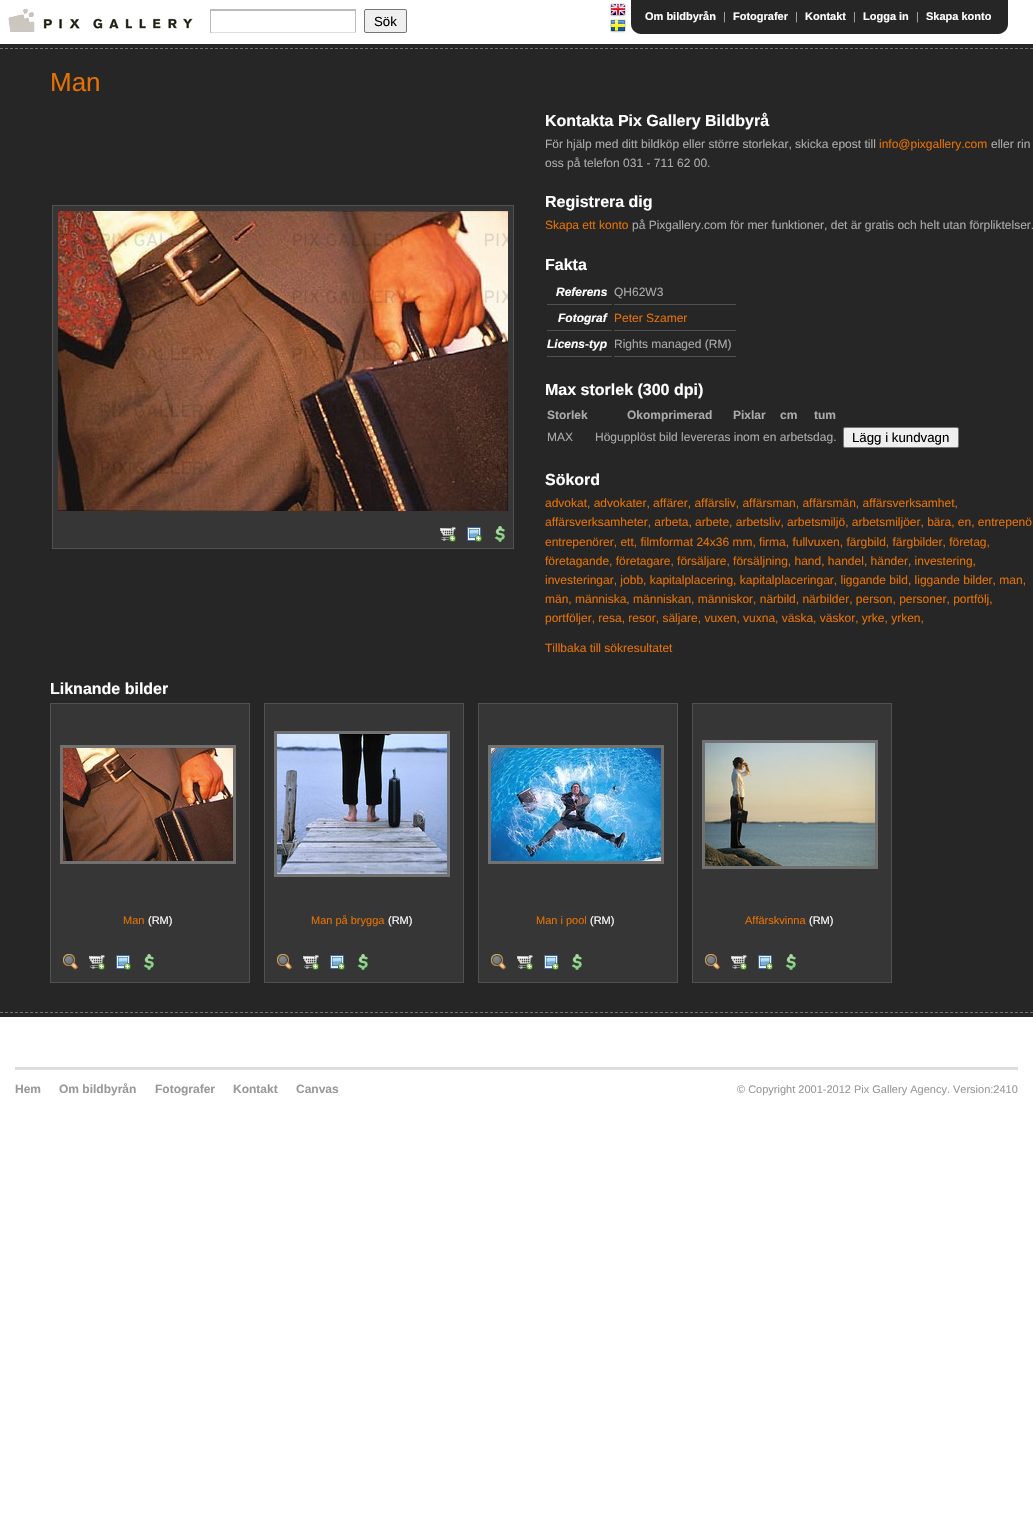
void draw(SkCanvas* canvas) {
    SkPaint paint;
    paint.setAntiAlias(true);
    canvas->clear(0xFFFFFFFF);
    canvas->drawImageRect(SkImages::DeferredFromEncodedData(SkData::MakeFromFileName("img1.png")), SkRect::MakeXYWH(8, 8, 185, 24), SkSamplingOptions());
    paint.setColor(0xFFBBBBBB);
    canvas->drawRect(SkRect::MakeXYWH(210, 9, 146, 2), paint);
    canvas->drawRect(SkRect::MakeXYWH(355, 9, 1, 24), paint);
    paint.setColor(0xFFDDDDDD);
    canvas->drawRect(SkRect::MakeXYWH(210, 32, 146, 1), paint);
    paint.setColor(0xFFBBBBBB);
    canvas->drawRect(SkRect::MakeXYWH(210, 9, 1, 24), paint);
    paint.setColor(0xFFEFEFEF);
    canvas->drawRoundRect(SkRect::MakeXYWH(364.5f, 9.5f, 42, 23), 1.5f, 1.5f, paint);
    paint.setStyle(SkPaint::kStroke_Style);
    paint.setStrokeWidth(1);
    paint.setColor(0xFF767676);
    canvas->drawRoundRect(SkRect::MakeXYWH(364.5f, 9.5f, 42, 23), 1.5f, 1.5f, paint);
    SkFont font1(fontMgr->matchFamilyStyle("Liberation Sans", SkFontStyle::Normal()), 13.25f);
    font1.setSubpixel(true);
    paint.setStyle(SkPaint::kFill_Style);
    paint.setColor(0xFF000000);
    canvas->drawString("Sök", 374, 26, font1, paint);
    canvas->drawImageRect(SkImages::DeferredFromEncodedData(SkData::MakeFromFileName("img2.png")), SkRect::MakeXYWH(610, 3, 16, 14), SkSamplingOptions());
    canvas->drawImageRect(SkImages::DeferredFromEncodedData(SkData::MakeFromFileName("img3.png")), SkRect::MakeXYWH(610, 19, 16, 14), SkSamplingOptions());
    paint.setColor(0xFF262626);
    canvas->drawRect(SkRect::MakeXYWH(631, 0, 377, 34), paint);
    canvas->drawImageRect(SkImages::DeferredFromEncodedData(SkData::MakeFromFileName("img4.png")), SkRect::MakeXYWH(631, 24, 9, 10), SkSamplingOptions());
    canvas->drawImageRect(SkImages::DeferredFromEncodedData(SkData::MakeFromFileName("img5.png")), SkRect::MakeXYWH(999, 24, 9, 10), SkSamplingOptions());
    SkFont font2(fontMgr->matchFamilyStyle("Liberation Sans", SkFontStyle::Bold()), 11);
    font2.setSubpixel(true);
    paint.setColor(0xFFFFFFFF);
    canvas->drawString("Om bildbyrån", 645, 20, font2, paint);
    SkFont font3(fontMgr->matchFamilyStyle("Liberation Sans", SkFontStyle::Normal()), 11);
    font3.setSubpixel(true);
    paint.setColor(0xFFAAAAAA);
    canvas->drawString("|", 723, 20, font3, paint);
    paint.setColor(0xFFFFFFFF);
    canvas->drawString("Fotografer", 733, 20, font2, paint);
    paint.setColor(0xFFAAAAAA);
    canvas->drawString("|", 795, 20, font3, paint);
    paint.setColor(0xFFFFFFFF);
    canvas->drawString("Kontakt", 805, 20, font2, paint);
    paint.setColor(0xFFAAAAAA);
    canvas->drawString("|", 853, 20, font3, paint);
    paint.setColor(0xFFFFFFFF);
    canvas->drawString("Logga in", 863, 20, font2, paint);
    paint.setColor(0xFFAAAAAA);
    canvas->drawString("|", 916, 20, font3, paint);
    paint.setColor(0xFFFFFFFF);
    canvas->drawString("Skapa konto", 926, 20, font2, paint);
    paint.setColor(0xFF262626);
    canvas->drawRect(SkRect::MakeXYWH(0, 44, 1033, 973), paint);
    canvas->drawImageRect(SkImages::DeferredFromEncodedData(SkData::MakeFromFileName("img6.png")), SkRect::MakeXYWH(0, 48, 1033, 1), SkSamplingOptions());
    canvas->drawImageRect(SkImages::DeferredFromEncodedData(SkData::MakeFromFileName("img6.png")), SkRect::MakeXYWH(0, 1012, 1033, 1), SkSamplingOptions());
    SkFont font4(fontMgr->matchFamilyStyle("Liberation Sans", SkFontStyle::Normal()), 26);
    font4.setSubpixel(true);
    paint.setColor(0xFFE47105);
    canvas->drawString("Man", 50, 91, font4, paint);
    paint.setColor(0xFF363636);
    canvas->drawRect(SkRect::MakeXYWH(52.5f, 205.5f, 461, 343), paint);
    paint.setStyle(SkPaint::kStroke_Style);
    paint.setColor(0xFF515151);
    canvas->drawRect(SkRect::MakeXYWH(52.5f, 205.5f, 461, 343), paint);
    canvas->drawImageRect(SkImages::DeferredFromEncodedData(SkData::MakeFromFileName("img7.png")), SkRect::MakeXYWH(58, 211, 450, 300), SkSamplingOptions());
    canvas->drawImageRect(SkImages::DeferredFromEncodedData(SkData::MakeFromFileName("img8.png")), SkRect::MakeXYWH(440, 527, 16, 15), SkSamplingOptions());
    canvas->drawImageRect(SkImages::DeferredFromEncodedData(SkData::MakeFromFileName("img9.png")), SkRect::MakeXYWH(467, 527, 15, 15), SkSamplingOptions());
    canvas->drawImageRect(SkImages::DeferredFromEncodedData(SkData::MakeFromFileName("img10.png")), SkRect::MakeXYWH(494, 526, 11, 16), SkSamplingOptions());
    SkFont font5(fontMgr->matchFamilyStyle("Liberation Sans", SkFontStyle::Bold()), 16);
    font5.setSubpixel(true);
    paint.setStyle(SkPaint::kFill_Style);
    paint.setColor(0xFFFFFFFF);
    canvas->drawString("Kontakta Pix Gallery Bildbyrå", 545, 126, font5, paint);
    SkFont font6(fontMgr->matchFamilyStyle("Liberation Sans", SkFontStyle::Normal()), 12);
    font6.setSubpixel(true);
    paint.setColor(0xFFAAAAAA);
    canvas->drawString("För hjälp med ditt bildköp eller större storlekar, skicka epost till", 545, 148, font6, paint);
    paint.setColor(0xFFE47105);
    canvas->drawString("info@pixgallery.com", 879, 148, font6, paint);
    paint.setColor(0xFFAAAAAA);
    canvas->drawString("eller rin", 991, 148, font6, paint);
    canvas->drawString("oss på telefon 031 - 711 62 00.", 545, 167, font6, paint);
    paint.setColor(0xFFFFFFFF);
    canvas->drawString("Registrera dig", 545, 207, font5, paint);
    paint.setColor(0xFFE47105);
    canvas->drawString("Skapa ett konto", 545, 229, font6, paint);
    paint.setColor(0xFFAAAAAA);
    canvas->drawString("på Pixgallery.com för mer funktioner, det är gratis och helt utan förpliktelser.", 632, 229, font6, paint);
    paint.setColor(0xFFFFFFFF);
    canvas->drawString("Fakta", 545, 270, font5, paint);
    paint.setColor(0xFF515151);
    canvas->drawRect(SkRect::MakeXYWH(547, 304, 65, 1), paint);
    SkFont font7(fontMgr->matchFamilyStyle("Liberation Sans", SkFontStyle::BoldItalic()), 12);
    font7.setSubpixel(true);
    paint.setColor(0xFFFFFFFF);
    canvas->drawString("Referens", 556, 296, font7, paint);
    paint.setColor(0xFF515151);
    canvas->drawRect(SkRect::MakeXYWH(614, 304, 122, 1), paint);
    paint.setColor(0xFFAAAAAA);
    canvas->drawString("QH62W3", 614, 296, font6, paint);
    paint.setColor(0xFF515151);
    canvas->drawRect(SkRect::MakeXYWH(547, 330, 65, 1), paint);
    paint.setColor(0xFFFFFFFF);
    canvas->drawString("Fotograf", 558, 322, font7, paint);
    paint.setColor(0xFF515151);
    canvas->drawRect(SkRect::MakeXYWH(614, 330, 122, 1), paint);
    paint.setColor(0xFFE47105);
    canvas->drawString("Peter Szamer", 614, 322, font6, paint);
    paint.setColor(0xFF515151);
    canvas->drawRect(SkRect::MakeXYWH(547, 356, 65, 1), paint);
    paint.setColor(0xFFFFFFFF);
    canvas->drawString("Licens-typ", 547, 348, font7, paint);
    paint.setColor(0xFF515151);
    canvas->drawRect(SkRect::MakeXYWH(614, 356, 122, 1), paint);
    paint.setColor(0xFFAAAAAA);
    canvas->drawString("Rights managed (RM)", 614, 348, font6, paint);
    paint.setColor(0xFFFFFFFF);
    canvas->drawString("Max storlek (300 dpi)", 545, 395, font5, paint);
    SkFont font8(fontMgr->matchFamilyStyle("Liberation Sans", SkFontStyle::Bold()), 12);
    font8.setSubpixel(true);
    paint.setColor(0xFFAAAAAA);
    canvas->drawString("Storlek", 547, 419, font8, paint);
    canvas->drawString("Okomprimerad", 627, 419, font8, paint);
    canvas->drawString("Pixlar", 733, 419, font8, paint);
    canvas->drawString("cm", 780, 419, font8, paint);
    canvas->drawString("tum", 814, 419, font8, paint);
    canvas->drawString("MAX", 547, 441, font6, paint);
    canvas->drawString("Högupplöst bild levereras inom en arbetsdag.", 595, 441, font6, paint);
    paint.setColor(0xFFEFEFEF);
    canvas->drawRoundRect(SkRect::MakeXYWH(843.5f, 427.5f, 115, 20), 1.5f, 1.5f, paint);
    paint.setStyle(SkPaint::kStroke_Style);
    paint.setColor(0xFF767676);
    canvas->drawRoundRect(SkRect::MakeXYWH(843.5f, 427.5f, 115, 20), 1.5f, 1.5f, paint);
    paint.setStyle(SkPaint::kFill_Style);
    paint.setColor(0xFF000000);
    canvas->drawString("Lägg i kundvagn", 852, 442, font1, paint);
    paint.setColor(0xFFFFFFFF);
    canvas->drawString("Sökord", 545, 485, font5, paint);
    paint.setColor(0xFFE47105);
    canvas->drawString("advokat, advokater, affärer, affärsliv, affärsman, affärsmän, affärsverksamhet,", 545, 507, font6, paint);
    canvas->drawString("affärsverksamheter, arbeta, arbete, arbetsliv, arbetsmiljö, arbetsmiljöer, bära, en, entrepenö", 545, 526, font6, paint);
    canvas->drawString("entrepenörer, ett, filmformat 24x36 mm, firma, fullvuxen, färgbild, färgbilder, företag,", 545, 546, font6, paint);
    canvas->drawString("företagande, företagare, försäljare, försäljning, hand, handel, händer, investering,", 545, 565, font6, paint);
    canvas->drawString("investeringar, jobb, kapitalplacering, kapitalplaceringar, liggande bild, liggande bilder, man,", 545, 584, font6, paint);
    canvas->drawString("män, människa, människan, människor, närbild, närbilder, person, personer, portfölj,", 545, 603, font6, paint);
    canvas->drawString("portföljer, resa, resor, säljare, vuxen, vuxna, väska, väskor, yrke, yrken,", 545, 622, font6, paint);
    canvas->drawString("Tillbaka till sökresultatet", 545, 652, font6, paint);
    paint.setColor(0xFFFFFFFF);
    canvas->drawString("Liknande bilder", 50, 694, font5, paint);
    paint.setColor(0xFF363636);
    canvas->drawRect(SkRect::MakeXYWH(50.5f, 703.5f, 199, 279), paint);
    paint.setStyle(SkPaint::kStroke_Style);
    paint.setColor(0xFF515151);
    canvas->drawRect(SkRect::MakeXYWH(50.5f, 703.5f, 199, 279), paint);
    paint.setStrokeWidth(3);
    paint.setColor(0xFF717171);
    canvas->drawRect(SkRect::MakeXYWH(61.5f, 746.5f, 173, 116), paint);
    canvas->drawImageRect(SkImages::DeferredFromEncodedData(SkData::MakeFromFileName("img11.png")), SkRect::MakeXYWH(63, 748, 170, 113), SkSamplingOptions());
    paint.setStyle(SkPaint::kFill_Style);
    paint.setColor(0xFFE47105);
    canvas->drawString("Man", 123, 924, font3, paint);
    paint.setColor(0xFFFFFFFF);
    canvas->drawString("(RM)", 148, 924, font3, paint);
    canvas->drawImageRect(SkImages::DeferredFromEncodedData(SkData::MakeFromFileName("img12.png")), SkRect::MakeXYWH(63, 954, 16, 16), SkSamplingOptions());
    canvas->drawImageRect(SkImages::DeferredFromEncodedData(SkData::MakeFromFileName("img8.png")), SkRect::MakeXYWH(89, 955, 16, 15), SkSamplingOptions());
    canvas->drawImageRect(SkImages::DeferredFromEncodedData(SkData::MakeFromFileName("img9.png")), SkRect::MakeXYWH(116, 955, 15, 15), SkSamplingOptions());
    canvas->drawImageRect(SkImages::DeferredFromEncodedData(SkData::MakeFromFileName("img10.png")), SkRect::MakeXYWH(143, 954, 11, 16), SkSamplingOptions());
    paint.setColor(0xFF363636);
    canvas->drawRect(SkRect::MakeXYWH(264.5f, 703.5f, 199, 279), paint);
    paint.setStyle(SkPaint::kStroke_Style);
    paint.setStrokeWidth(1);
    paint.setColor(0xFF515151);
    canvas->drawRect(SkRect::MakeXYWH(264.5f, 703.5f, 199, 279), paint);
    paint.setStrokeWidth(3);
    paint.setColor(0xFF717171);
    canvas->drawRect(SkRect::MakeXYWH(275.5f, 732.5f, 173, 143), paint);
    canvas->drawImageRect(SkImages::DeferredFromEncodedData(SkData::MakeFromFileName("img13.png")), SkRect::MakeXYWH(277, 734, 170, 140), SkSamplingOptions());
    paint.setStyle(SkPaint::kFill_Style);
    paint.setColor(0xFFE47105);
    canvas->drawString("Man på brygga", 311, 924, font3, paint);
    paint.setColor(0xFFFFFFFF);
    canvas->drawString("(RM)", 388, 924, font3, paint);
    canvas->drawImageRect(SkImages::DeferredFromEncodedData(SkData::MakeFromFileName("img12.png")), SkRect::MakeXYWH(277, 954, 16, 16), SkSamplingOptions());
    canvas->drawImageRect(SkImages::DeferredFromEncodedData(SkData::MakeFromFileName("img8.png")), SkRect::MakeXYWH(303, 955, 16, 15), SkSamplingOptions());
    canvas->drawImageRect(SkImages::DeferredFromEncodedData(SkData::MakeFromFileName("img9.png")), SkRect::MakeXYWH(330, 955, 15, 15), SkSamplingOptions());
    canvas->drawImageRect(SkImages::DeferredFromEncodedData(SkData::MakeFromFileName("img10.png")), SkRect::MakeXYWH(357, 954, 11, 16), SkSamplingOptions());
    paint.setColor(0xFF363636);
    canvas->drawRect(SkRect::MakeXYWH(478.5f, 703.5f, 199, 279), paint);
    paint.setStyle(SkPaint::kStroke_Style);
    paint.setStrokeWidth(1);
    paint.setColor(0xFF515151);
    canvas->drawRect(SkRect::MakeXYWH(478.5f, 703.5f, 199, 279), paint);
    paint.setStrokeWidth(3);
    paint.setColor(0xFF717171);
    canvas->drawRect(SkRect::MakeXYWH(489.5f, 746.5f, 173, 116), paint);
    canvas->drawImageRect(SkImages::DeferredFromEncodedData(SkData::MakeFromFileName("img14.png")), SkRect::MakeXYWH(491, 748, 170, 113), SkSamplingOptions());
    paint.setStyle(SkPaint::kFill_Style);
    paint.setColor(0xFFE47105);
    canvas->drawString("Man i pool", 536, 924, font3, paint);
    paint.setColor(0xFFFFFFFF);
    canvas->drawString("(RM)", 590, 924, font3, paint);
    canvas->drawImageRect(SkImages::DeferredFromEncodedData(SkData::MakeFromFileName("img12.png")), SkRect::MakeXYWH(491, 954, 16, 16), SkSamplingOptions());
    canvas->drawImageRect(SkImages::DeferredFromEncodedData(SkData::MakeFromFileName("img8.png")), SkRect::MakeXYWH(517, 955, 16, 15), SkSamplingOptions());
    canvas->drawImageRect(SkImages::DeferredFromEncodedData(SkData::MakeFromFileName("img9.png")), SkRect::MakeXYWH(544, 955, 15, 15), SkSamplingOptions());
    canvas->drawImageRect(SkImages::DeferredFromEncodedData(SkData::MakeFromFileName("img10.png")), SkRect::MakeXYWH(571, 954, 11, 16), SkSamplingOptions());
    paint.setColor(0xFF363636);
    canvas->drawRect(SkRect::MakeXYWH(692.5f, 703.5f, 199, 279), paint);
    paint.setStyle(SkPaint::kStroke_Style);
    paint.setStrokeWidth(1);
    paint.setColor(0xFF515151);
    canvas->drawRect(SkRect::MakeXYWH(692.5f, 703.5f, 199, 279), paint);
    paint.setStrokeWidth(3);
    paint.setColor(0xFF717171);
    canvas->drawRect(SkRect::MakeXYWH(703.5f, 741.5f, 173, 126), paint);
    canvas->drawImageRect(SkImages::DeferredFromEncodedData(SkData::MakeFromFileName("img15.png")), SkRect::MakeXYWH(705, 743, 170, 123), SkSamplingOptions());
    paint.setStyle(SkPaint::kFill_Style);
    paint.setColor(0xFFE47105);
    canvas->drawString("Affärskvinna", 745, 924, font3, paint);
    paint.setColor(0xFFFFFFFF);
    canvas->drawString("(RM)", 809, 924, font3, paint);
    canvas->drawImageRect(SkImages::DeferredFromEncodedData(SkData::MakeFromFileName("img12.png")), SkRect::MakeXYWH(705, 954, 16, 16), SkSamplingOptions());
    canvas->drawImageRect(SkImages::DeferredFromEncodedData(SkData::MakeFromFileName("img8.png")), SkRect::MakeXYWH(731, 955, 16, 15), SkSamplingOptions());
    canvas->drawImageRect(SkImages::DeferredFromEncodedData(SkData::MakeFromFileName("img9.png")), SkRect::MakeXYWH(758, 955, 15, 15), SkSamplingOptions());
    canvas->drawImageRect(SkImages::DeferredFromEncodedData(SkData::MakeFromFileName("img10.png")), SkRect::MakeXYWH(785, 954, 11, 16), SkSamplingOptions());
    paint.setColor(0xFFDDDDDD);
    canvas->drawRect(SkRect::MakeXYWH(15, 1067, 1003, 3), paint);
    paint.setColor(0xFF999999);
    canvas->drawString("Hem", 15, 1093, font8, paint);
    canvas->drawString("Om bildbyrån", 59, 1093, font8, paint);
    canvas->drawString("Fotografer", 155, 1093, font8, paint);
    canvas->drawString("Kontakt", 233, 1093, font8, paint);
    canvas->drawString("Canvas", 296, 1093, font8, paint);
    canvas->drawString("© Copyright 2001-2012 Pix Gallery Agency. Version:2410", 737, 1093, font3, paint);
}
